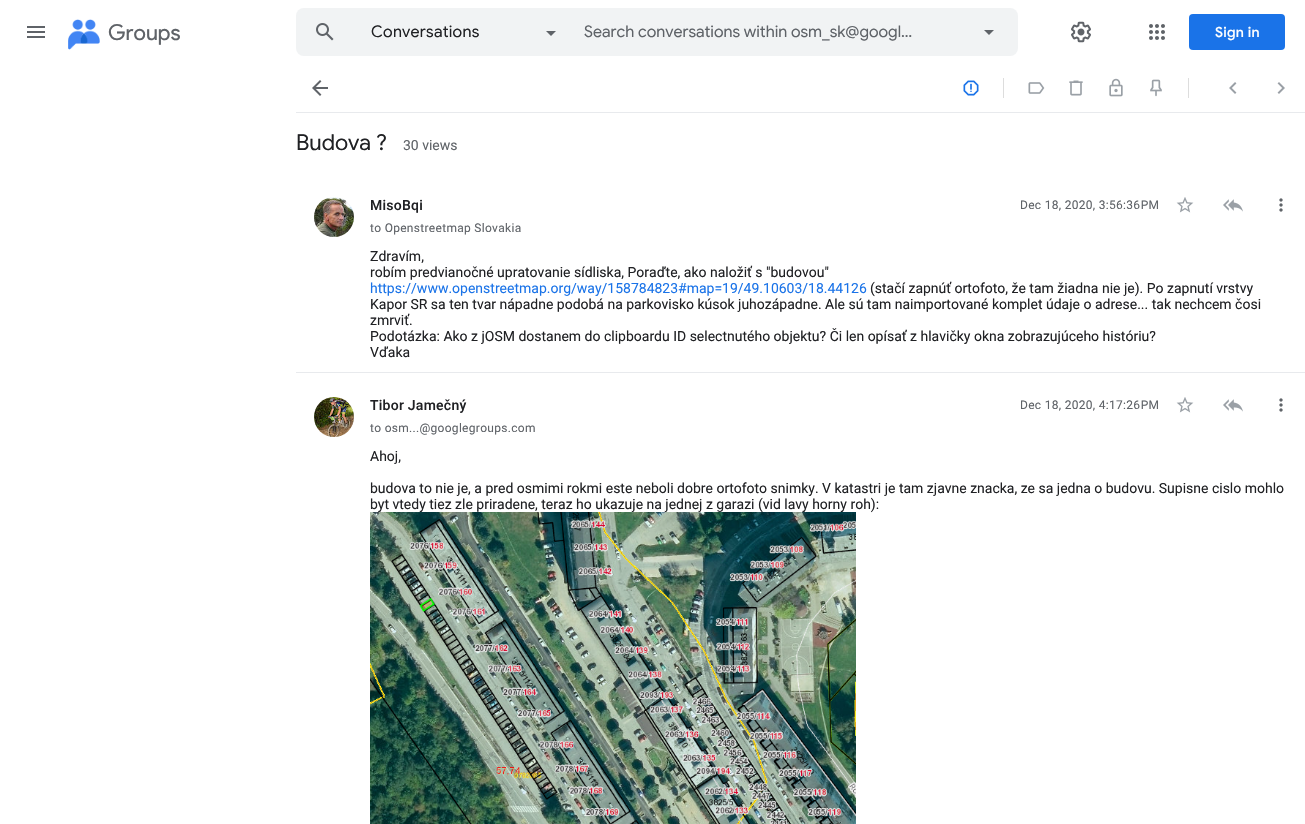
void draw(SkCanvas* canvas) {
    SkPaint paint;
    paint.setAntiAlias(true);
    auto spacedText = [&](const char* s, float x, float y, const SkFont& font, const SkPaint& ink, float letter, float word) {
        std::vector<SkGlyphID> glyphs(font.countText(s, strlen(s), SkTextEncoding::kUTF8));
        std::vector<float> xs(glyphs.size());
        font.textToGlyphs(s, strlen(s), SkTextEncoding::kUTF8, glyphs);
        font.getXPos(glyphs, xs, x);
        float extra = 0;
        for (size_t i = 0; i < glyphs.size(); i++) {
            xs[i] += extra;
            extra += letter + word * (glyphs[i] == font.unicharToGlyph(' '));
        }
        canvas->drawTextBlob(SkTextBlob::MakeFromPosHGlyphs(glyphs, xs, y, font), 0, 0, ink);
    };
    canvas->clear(0xFFFFFFFF);
    canvas->drawImageRect(SkImages::DeferredFromEncodedData(SkData::MakeFromFileName("img1.png")), SkRect::MakeXYWH(27, 26, 18, 12), SkSamplingOptions());
    canvas->drawImageRect(SkImages::DeferredFromEncodedData(SkData::MakeFromFileName("img2.png")), SkRect::MakeXYWH(68, 19, 32, 31), SkSamplingOptions());
    SkFont font1(fontMgr->matchFamilyStyle("Product Sans", SkFontStyle::Normal()), 22);
    font1.setSubpixel(true);
    paint.setColor(0xFF5F6368);
    canvas->drawString("Groups", 108, 40, font1, paint);
    paint.setColor(0xFFF1F3F4);
    canvas->drawRoundRect(SkRect::MakeXYWH(296, 8, 722, 48), 8, 8, paint);
    canvas->drawImageRect(SkImages::DeferredFromEncodedData(SkData::MakeFromFileName("img3.png")), SkRect::MakeXYWH(316, 23, 18, 18), SkSamplingOptions());
    SkFont font2(fontMgr->matchFamilyStyle("Google Sans", SkFontStyle::Normal()), 16);
    font2.setSubpixel(true);
    paint.setColor(0xFF202124);
    spacedText("Conversations", 371, 37, font2, paint, 0.25f, 0);
    paint.setColor(0xFF5F6368);
    canvas->drawPath(SkPathBuilder().moveTo(546, 31).lineTo(556, 31).lineTo(551, 36).close().detach(), paint);
    canvas->drawString("Search conversations within osm_sk@googl…", 584, 37, font2, paint);
    canvas->drawPath(SkPathBuilder().moveTo(984, 30).lineTo(989, 35).lineTo(994, 30).close().detach(), paint);
    canvas->drawImageRect(SkImages::DeferredFromEncodedData(SkData::MakeFromFileName("img4.png")), SkRect::MakeXYWH(1071, 21, 20, 22), SkSamplingOptions());
    canvas->drawImageRect(SkImages::DeferredFromEncodedData(SkData::MakeFromFileName("img5.png")), SkRect::MakeXYWH(1149, 24, 16, 16), SkSamplingOptions());
    paint.setColor(0xFF1A73E8);
    canvas->drawRoundRect(SkRect::MakeXYWH(1189, 14, 96, 36), 4, 4, paint);
    SkFont font3(fontMgr->matchFamilyStyle("Google Sans", SkFontStyle(500, SkFontStyle::kNormal_Width, SkFontStyle::kUpright_Slant)), 14);
    font3.setSubpixel(true);
    paint.setColor(0xFFFFFFFF);
    spacedText("Sign in", 1215, 37, font3, paint, 0.25f, 0);
    paint.setColor(0xFFE8EAED);
    canvas->drawRect(SkRect::MakeXYWH(296, 112, 1009, 1), paint);
    canvas->drawImageRect(SkImages::DeferredFromEncodedData(SkData::MakeFromFileName("img6.png")), SkRect::MakeXYWH(312, 80, 16, 16), SkSamplingOptions());
    canvas->drawImageRect(SkImages::DeferredFromEncodedData(SkData::MakeFromFileName("img7.png")), SkRect::MakeXYWH(963, 80, 16, 16), SkSamplingOptions());
    paint.setColor(0xFFDDDDDD);
    canvas->drawRect(SkRect::MakeXYWH(1003, 78, 1, 20), paint);
    canvas->drawImageRect(SkImages::DeferredFromEncodedData(SkData::MakeFromFileName("img8.png")), SkRect::MakeXYWH(1028, 82, 17, 12), SkSamplingOptions());
    canvas->drawImageRect(SkImages::DeferredFromEncodedData(SkData::MakeFromFileName("img9.png")), SkRect::MakeXYWH(1069, 80, 14, 16), SkSamplingOptions());
    canvas->drawImageRect(SkImages::DeferredFromEncodedData(SkData::MakeFromFileName("img10.png")), SkRect::MakeXYWH(1109, 78, 14, 19), SkSamplingOptions());
    canvas->drawImageRect(SkImages::DeferredFromEncodedData(SkData::MakeFromFileName("img11.png")), SkRect::MakeXYWH(1150, 79, 12, 18), SkSamplingOptions());
    canvas->drawRect(SkRect::MakeXYWH(1188, 78, 1, 20), paint);
    canvas->drawImageRect(SkImages::DeferredFromEncodedData(SkData::MakeFromFileName("img12.png")), SkRect::MakeXYWH(1229, 82, 8, 12), SkSamplingOptions());
    canvas->drawImageRect(SkImages::DeferredFromEncodedData(SkData::MakeFromFileName("img13.png")), SkRect::MakeXYWH(1277, 82, 8, 12), SkSamplingOptions());
    SkFont font4(fontMgr->matchFamilyStyle("Google Sans", SkFontStyle::Normal()), 22);
    font4.setSubpixel(true);
    paint.setColor(0xFF202124);
    canvas->drawString("Budova ?", 296, 150, font4, paint);
    SkFont font5(fontMgr->matchFamilyStyle("Roboto", SkFontStyle::Normal()), 14);
    font5.setSubpixel(true);
    paint.setColor(0xFF5F6368);
    canvas->drawString("30 views", 403, 150, font5, paint);
    paint.setColor(0xFFE8EAED);
    canvas->drawRect(SkRect::MakeXYWH(296, 372, 1009, 1), paint);
    canvas->drawImageRect(SkImages::DeferredFromEncodedData(SkData::MakeFromFileName("img14.png")), SkRect::MakeXYWH(314, 197, 40, 40), SkSamplingOptions());
    SkFont font6(fontMgr->matchFamilyStyle("Roboto", SkFontStyle(500, SkFontStyle::kNormal_Width, SkFontStyle::kUpright_Slant)), 14);
    font6.setSubpixel(true);
    paint.setColor(0xFF202124);
    spacedText("MisoBqi", 370, 210, font6, paint, 0.25f, 0);
    SkFont font7(fontMgr->matchFamilyStyle("Roboto", SkFontStyle::Normal()), 12);
    font7.setSubpixel(true);
    paint.setColor(0xFF5F6368);
    spacedText("Dec 18, 2020, 3:56:36 PM", 1020, 209, font7, paint, 0.3f, 0);
    canvas->drawImageRect(SkImages::DeferredFromEncodedData(SkData::MakeFromFileName("img15.png")), SkRect::MakeXYWH(1176, 197, 18, 16), SkSamplingOptions());
    canvas->drawImageRect(SkImages::DeferredFromEncodedData(SkData::MakeFromFileName("img16.png")), SkRect::MakeXYWH(1223, 199, 20, 13), SkSamplingOptions());
    canvas->drawImageRect(SkImages::DeferredFromEncodedData(SkData::MakeFromFileName("img17.png")), SkRect::MakeXYWH(1279, 198, 4, 14), SkSamplingOptions());
    spacedText("to Openstreetmap Slovakia", 370, 232, font7, paint, 0.3f, 0);
    paint.setColor(0xFF202124);
    canvas->drawString("Zdravím,", 370, 261, font5, paint);
    canvas->drawString("robím predvianočné upratovanie sídliska, Poraďte, ako naložiť s \"budovou\"", 370, 277, font5, paint);
    paint.setColor(0xFF1A73E8);
    canvas->drawString("https://www.openstreetmap.org/way/158784823#map=19/49.10603/18.44126", 370, 293, font5, paint);
    paint.setColor(0xFF202124);
    canvas->drawString("(stačí zapnúť ortofoto, že tam žiadna nie je). Po zapnutí vrstvy", 870, 293, font5, paint);
    canvas->drawString("Kapor SR sa ten tvar nápadne podobá na parkovisko kúsok juhozápadne. Ale sú tam naimportované komplet údaje o adrese... tak nechcem čosi", 370, 309, font5, paint);
    canvas->drawString("zmrviť.", 370, 325, font5, paint);
    canvas->drawString("Podotázka: Ako z jOSM dostanem do clipboardu ID selectnutého objektu? Či len opísať z hlavičky okna zobrazujúceho históriu?", 370, 341, font5, paint);
    canvas->drawString("Vďaka", 370, 357, font5, paint);
    canvas->drawImageRect(SkImages::DeferredFromEncodedData(SkData::MakeFromFileName("img18.png")), SkRect::MakeXYWH(314, 397, 40, 40), SkSamplingOptions());
    spacedText("Tibor Jamečný", 370, 410, font6, paint, 0.25f, 0);
    paint.setColor(0xFF5F6368);
    spacedText("Dec 18, 2020, 4:17:26 PM", 1020, 409, font7, paint, 0.3f, 0);
    canvas->drawImageRect(SkImages::DeferredFromEncodedData(SkData::MakeFromFileName("img15.png")), SkRect::MakeXYWH(1176, 397, 18, 16), SkSamplingOptions());
    canvas->drawImageRect(SkImages::DeferredFromEncodedData(SkData::MakeFromFileName("img16.png")), SkRect::MakeXYWH(1223, 399, 20, 13), SkSamplingOptions());
    canvas->drawImageRect(SkImages::DeferredFromEncodedData(SkData::MakeFromFileName("img17.png")), SkRect::MakeXYWH(1279, 398, 4, 14), SkSamplingOptions());
    spacedText("to osm...@googlegroups.com", 370, 432, font7, paint, 0.3f, 0);
    paint.setColor(0xFF202124);
    canvas->drawString("Ahoj,", 370, 461, font5, paint);
    canvas->drawString("budova to nie je, a pred osmimi rokmi este neboli dobre ortofoto snimky. V katastri je tam zjavne znacka, ze sa jedna o budovu. Supisne cislo mohlo", 370, 493, font5, paint);
    canvas->drawString("byt vtedy tiez zle priradene, teraz ho ukazuje na jednej z garazi (vid lavy horny roh):", 370, 509, font5, paint);
    canvas->drawImageRect(SkImages::DeferredFromEncodedData(SkData::MakeFromFileName("img19.png")), SkRect::MakeXYWH(370, 512, 486, 312), SkSamplingOptions());
}
